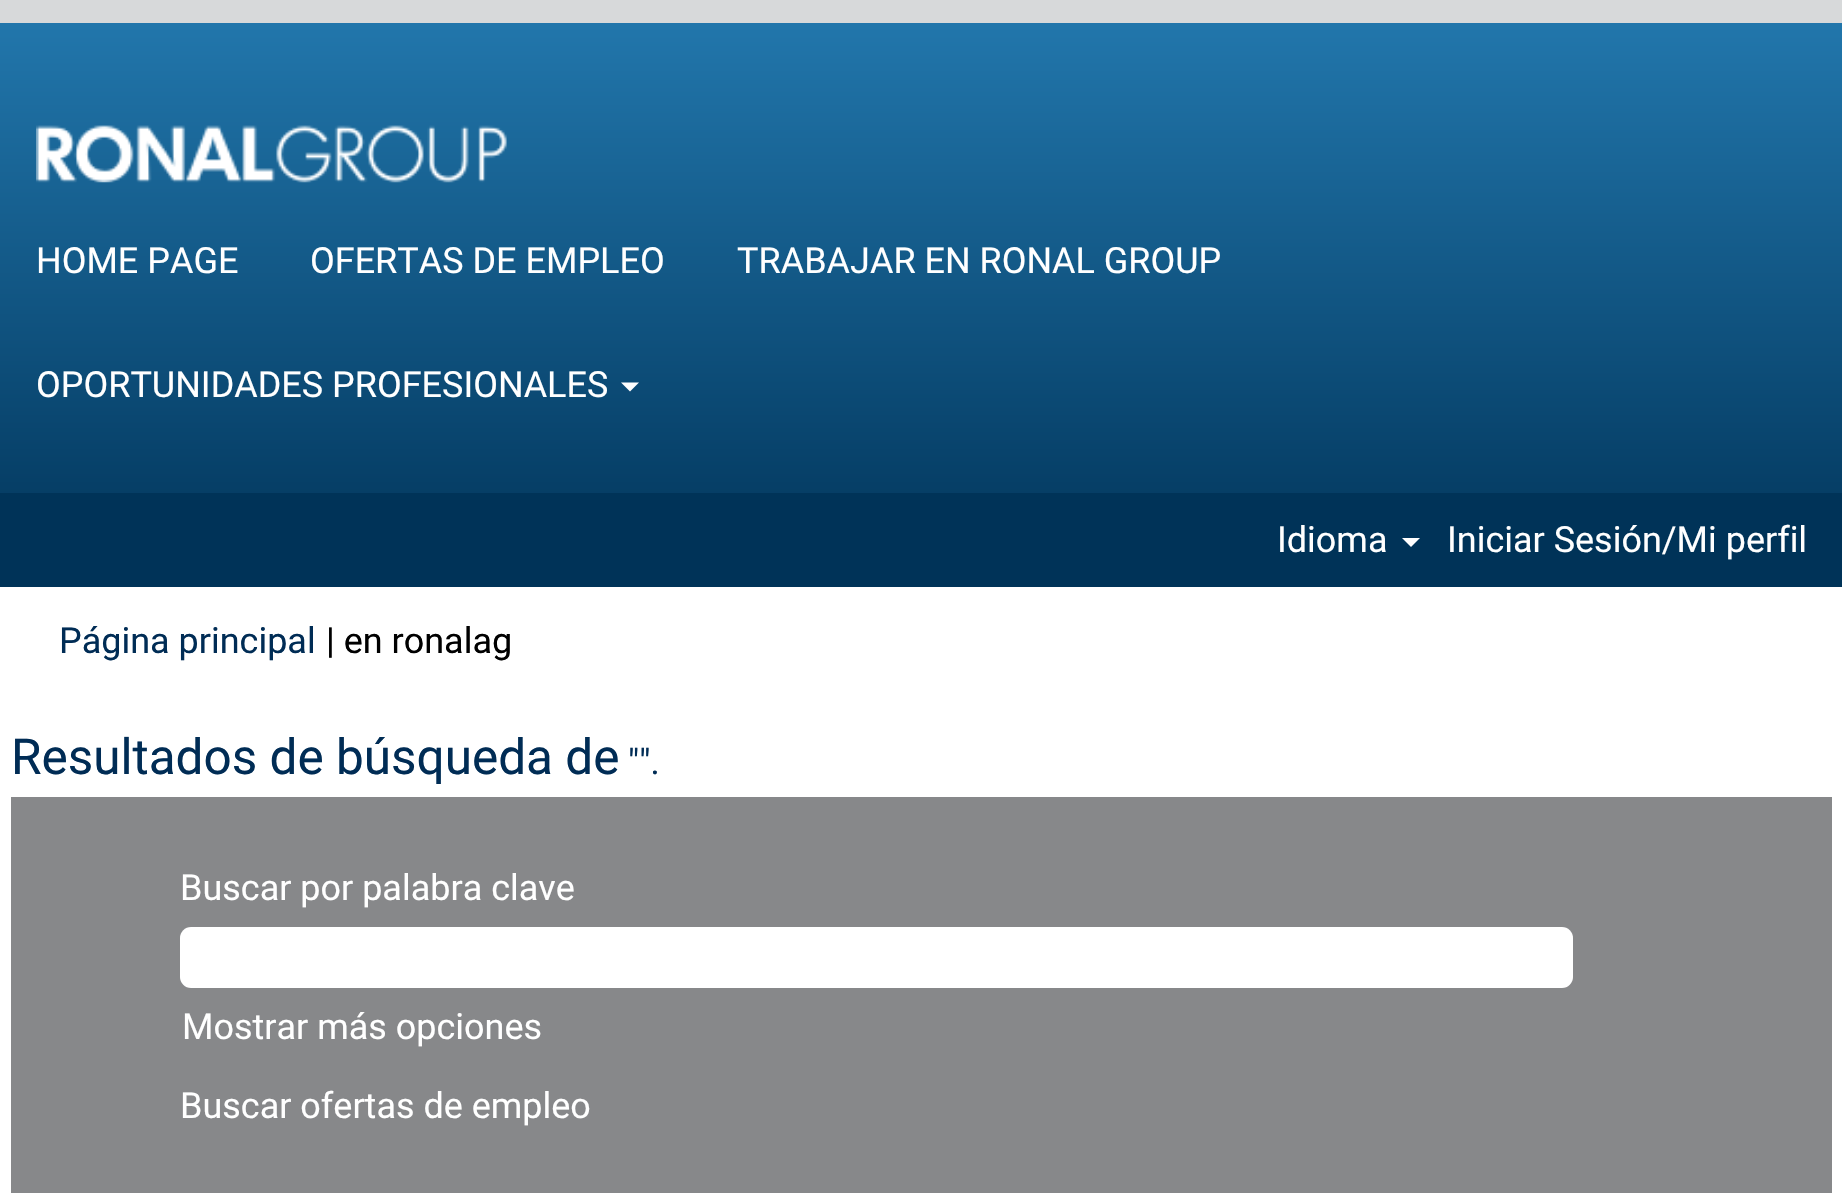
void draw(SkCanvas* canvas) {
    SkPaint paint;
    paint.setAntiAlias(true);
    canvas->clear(0xFFFFFFFF);
    {
        const SkColor colors[] = {0xFF2379AF, 0xFF003358};
        const float stops[] = {0, 1};
        const SkPoint ends[] = {{921, 0}, {921, 587}};
        paint.setShader(SkGradientShader::MakeLinear(ends, colors, stops, 2, SkTileMode::kClamp));
        paint.setAlpha(255);
    }
    canvas->drawRect(SkRect::MakeXYWH(0, 23, 1842, 470), paint);
    paint.setShader(nullptr);
    paint.setColor(0xFFD7D9DA);
    canvas->drawRect(SkRect::MakeXYWH(0, 0, 1842, 23), paint);
    canvas->drawImageRect(SkImages::DeferredFromEncodedData(SkData::MakeFromFileName("img1.png")), SkRect::MakeXYWH(36, 125, 471, 58), SkSamplingOptions());
    SkFont font1(fontMgr->matchFamilyStyle("Roboto", SkFontStyle::Normal()), 36);
    font1.setSubpixel(true);
    paint.setColor(0xFFFFFFFF);
    canvas->drawString("HOME PAGE", 36, 273, font1, paint);
    canvas->drawString("OFERTAS DE EMPLEO", 310, 273, font1, paint);
    canvas->drawString("TRABAJAR EN RONAL GROUP", 737, 273, font1, paint);
    canvas->drawString("OPORTUNIDADES PROFESIONALES", 36, 397, font1, paint);
    canvas->drawPath(SkPathBuilder().moveTo(621, 382.5f).lineTo(639, 382.5f).lineTo(630, 391.5f).close().detach(), paint);
    paint.setColor(0xFF003358);
    canvas->drawRect(SkRect::MakeXYWH(0, 493, 1842, 94), paint);
    paint.setColor(0xFFFFFFFF);
    canvas->drawString("Idioma", 1277, 552, font1, paint);
    canvas->drawPath(SkPathBuilder().moveTo(1402, 538).lineTo(1420, 538).lineTo(1411, 547).close().detach(), paint);
    canvas->drawString("Iniciar Sesión/Mi perfil", 1447, 552, font1, paint);
    paint.setColor(0xFF002C55);
    canvas->drawString("Página principal", 59, 653, font1, paint);
    paint.setColor(0xFF000000);
    canvas->drawString("| en ronalag", 326, 653, font1, paint);
    SkFont font2(fontMgr->matchFamilyStyle("Roboto", SkFontStyle::Normal()), 49.5f);
    font2.setSubpixel(true);
    paint.setColor(0xFF002C55);
    canvas->drawString("Resultados de búsqueda de", 11, 774, font2, paint);
    SkFont font3(fontMgr->matchFamilyStyle("Roboto", SkFontStyle::Normal()), 35);
    font3.setSubpixel(true);
    canvas->drawString("\"\".", 628, 774, font3, paint);
    paint.setColor(0xFF87888A);
    canvas->drawRect(SkRect::MakeXYWH(11, 797, 1821, 396), paint);
    paint.setColor(0xFFFFFFFF);
    canvas->drawString("Buscar por palabra clave", 180, 900, font1, paint);
    canvas->drawRoundRect(SkRect::MakeXYWH(180, 927, 1393, 61), 11, 11, paint);
    canvas->drawString("Mostrar más opciones", 182, 1039, font1, paint);
    canvas->drawString("Buscar ofertas de empleo", 180, 1118, font1, paint);
}
